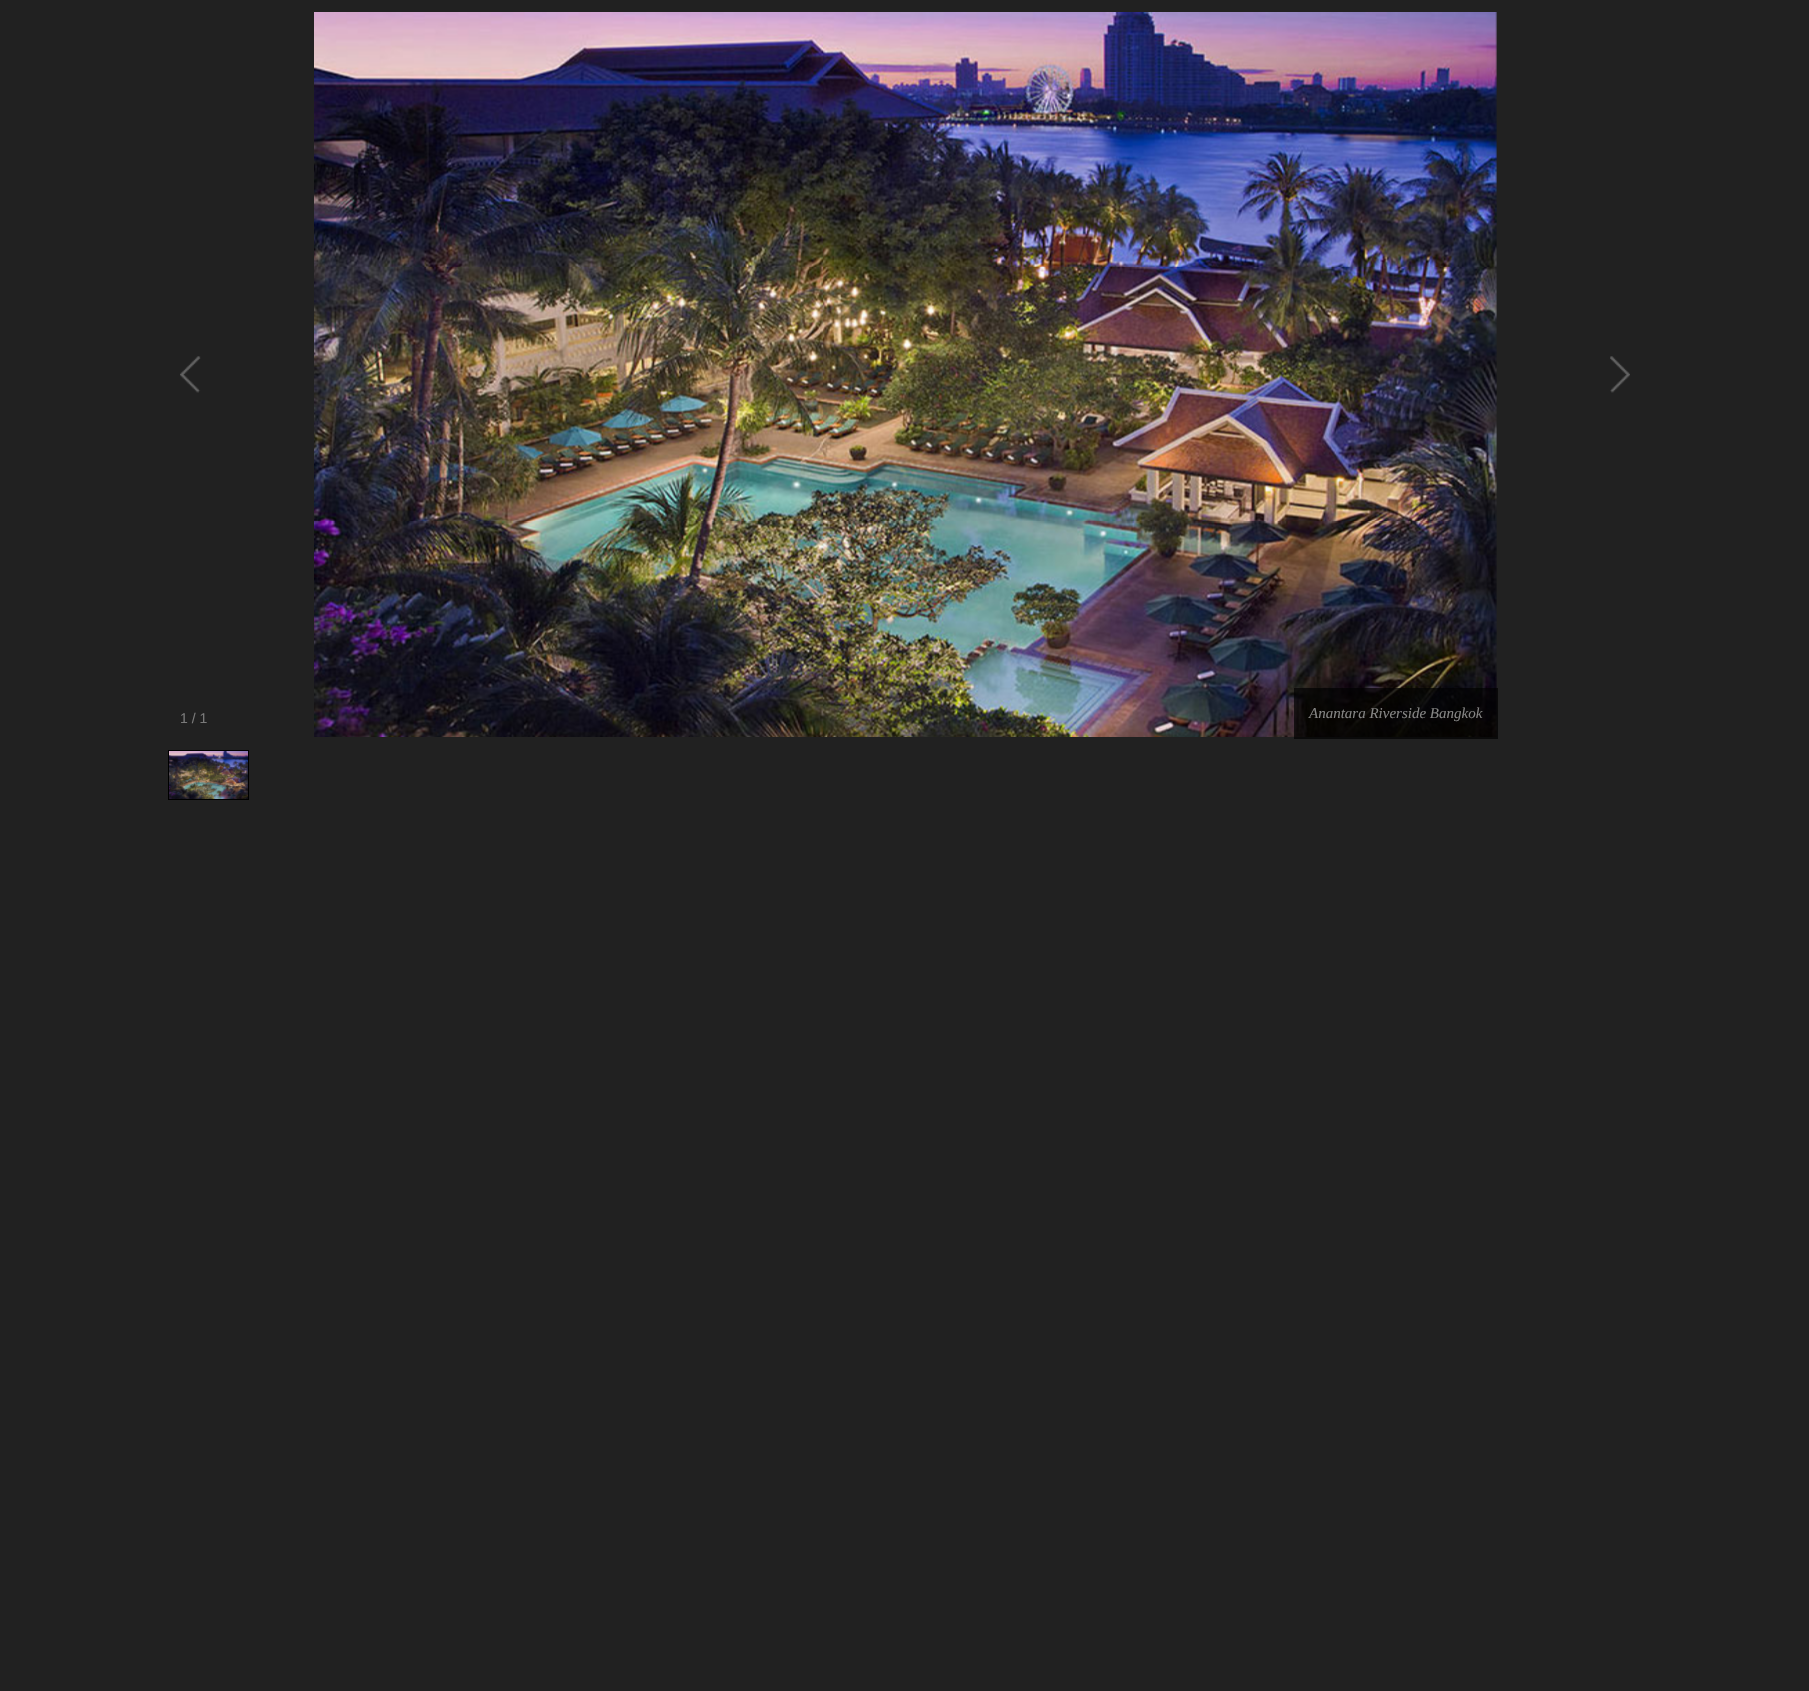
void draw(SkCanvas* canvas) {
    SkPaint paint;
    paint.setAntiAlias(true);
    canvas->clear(0xFF212121);
    canvas->drawImageRect(SkImages::DeferredFromEncodedData(SkData::MakeFromFileName("img1.png")), SkRect::MakeXYWH(314, 12, 1183, 725), SkSamplingOptions());
    canvas->drawImageRect(SkImages::DeferredFromEncodedData(SkData::MakeFromFileName("img2.png")), SkRect::MakeXYWH(180, 356, 21, 37), SkSamplingOptions());
    canvas->drawImageRect(SkImages::DeferredFromEncodedData(SkData::MakeFromFileName("img3.png")), SkRect::MakeXYWH(1610, 356, 20, 37), SkSamplingOptions());
    SkFont font1(fontMgr->matchFamilyStyle("Liberation Sans", SkFontStyle::Normal()), 14);
    font1.setSubpixel(true);
    paint.setColor(0xFF7A7A7A);
    canvas->drawString("1 / 1", 180, 723, font1, paint);
    paint.setColor(0xB3000000);
    canvas->drawRect(SkRect::MakeXYWH(1294, 688, 204, 51), paint);
    SkFont font2(fontMgr->matchFamilyStyle("Liberation Serif", SkFontStyle::Italic()), 15);
    font2.setSubpixel(true);
    paint.setColor(0xFF858584);
    canvas->drawString("Anantara Riverside Bangkok", 1309, 718, font2, paint);
    paint.setColor(0xFF000000);
    canvas->drawRect(SkRect::MakeXYWH(168, 750, 81, 50), paint);
    canvas->drawImageRect(SkImages::DeferredFromEncodedData(SkData::MakeFromFileName("img4.png")), SkRect::MakeXYWH(169, 751, 79, 48), SkSamplingOptions());
}
